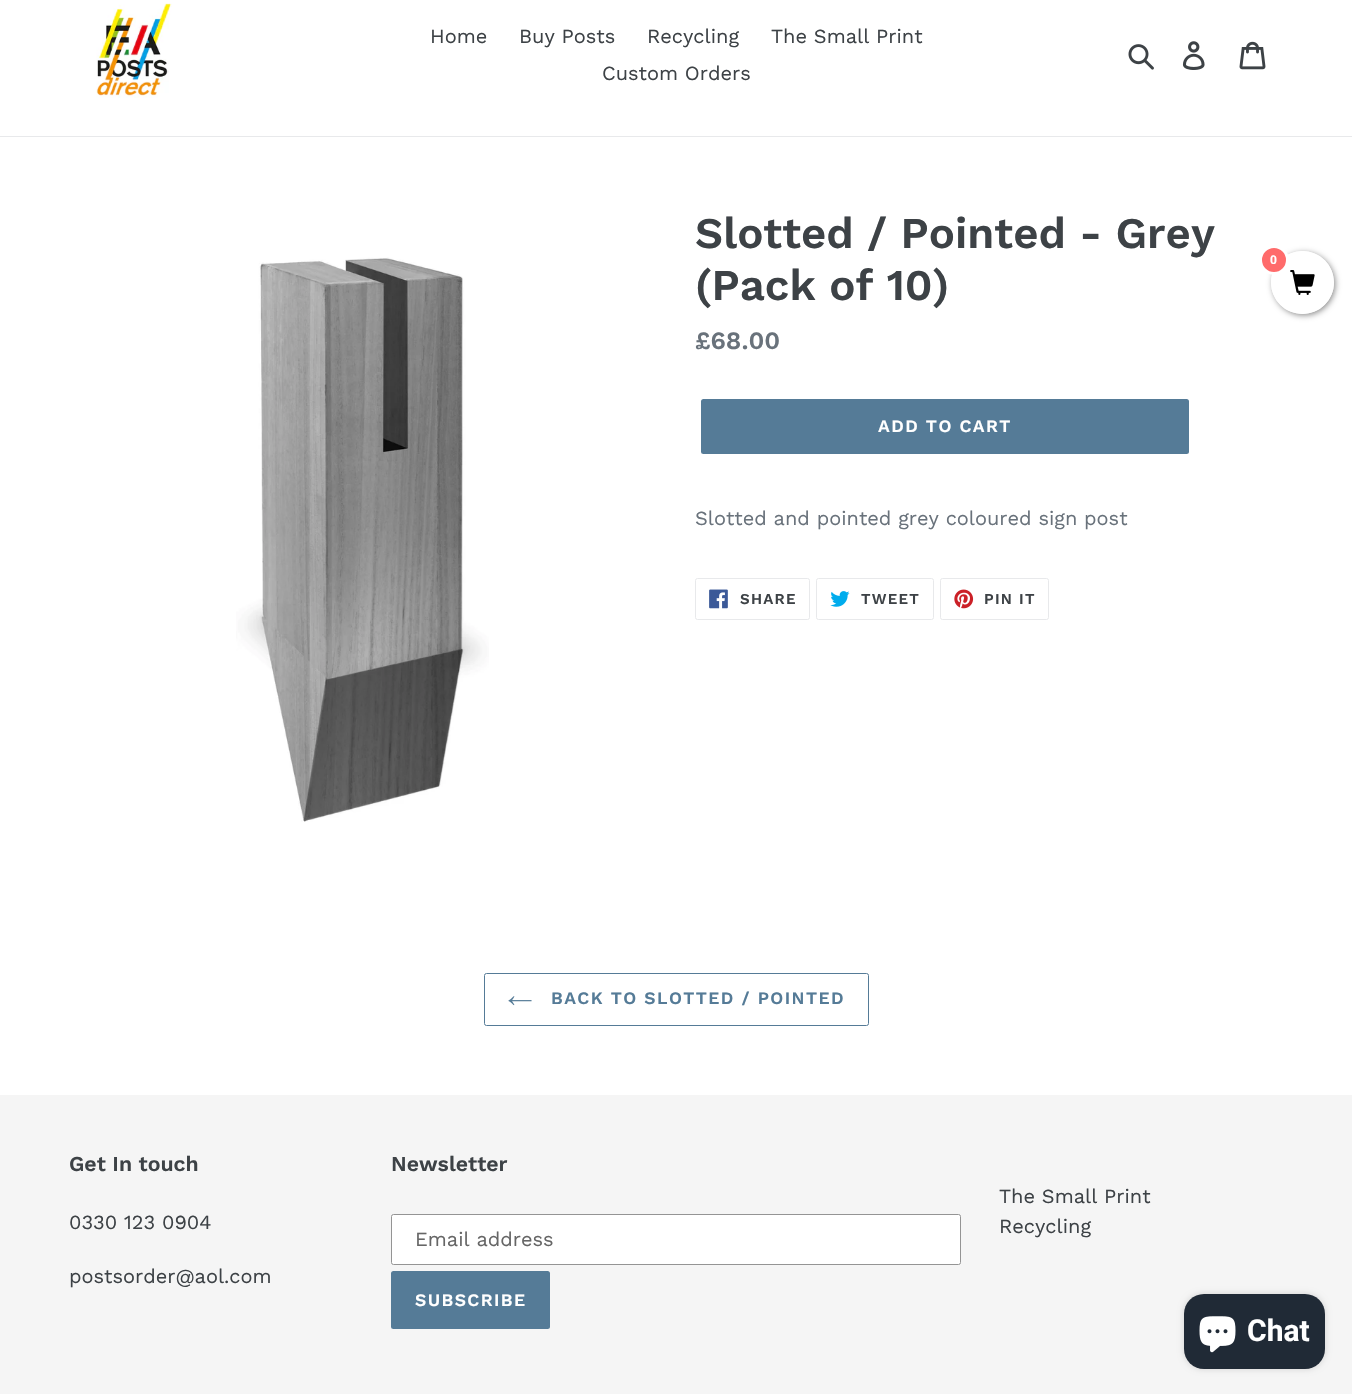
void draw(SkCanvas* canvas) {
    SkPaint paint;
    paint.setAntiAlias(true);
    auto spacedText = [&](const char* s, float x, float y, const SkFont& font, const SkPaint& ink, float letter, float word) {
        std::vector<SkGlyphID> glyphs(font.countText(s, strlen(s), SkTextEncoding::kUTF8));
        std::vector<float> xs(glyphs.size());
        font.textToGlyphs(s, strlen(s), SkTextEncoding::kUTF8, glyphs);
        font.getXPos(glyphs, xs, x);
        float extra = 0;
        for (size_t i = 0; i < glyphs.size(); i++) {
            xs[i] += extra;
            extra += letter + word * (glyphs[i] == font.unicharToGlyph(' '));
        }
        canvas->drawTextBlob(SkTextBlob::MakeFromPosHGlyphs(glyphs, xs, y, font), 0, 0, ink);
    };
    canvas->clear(0xFFFFFFFF);
    paint.setColor(0xFFE8E9EB);
    canvas->drawRect(SkRect::MakeXYWH(0, 136, 1352, 1), paint);
    canvas->drawImageRect(SkImages::DeferredFromEncodedData(SkData::MakeFromFileName("img1.png")), SkRect::MakeXYWH(96, 3, 76, 95), SkSamplingOptions());
    SkFont font1(fontMgr->matchFamilyStyle("Work Sans", SkFontStyle::Normal()), 20);
    font1.setSubpixel(true);
    paint.setColor(0xFF3D4246);
    canvas->drawString("Home", 430, 43, font1, paint);
    canvas->drawString("Buy Posts", 519, 43, font1, paint);
    canvas->drawString("Recycling", 647, 43, font1, paint);
    canvas->drawString("The Small Print", 771, 43, font1, paint);
    canvas->drawString("Custom Orders", 602, 80, font1, paint);
    canvas->drawImageRect(SkImages::DeferredFromEncodedData(SkData::MakeFromFileName("img2.png")), SkRect::MakeXYWH(1128, 44, 26, 26), SkSamplingOptions());
    canvas->drawImageRect(SkImages::DeferredFromEncodedData(SkData::MakeFromFileName("img3.png")), SkRect::MakeXYWH(1182, 41, 23, 29), SkSamplingOptions());
    canvas->drawImageRect(SkImages::DeferredFromEncodedData(SkData::MakeFromFileName("img4.png")), SkRect::MakeXYWH(1239, 41, 27, 29), SkSamplingOptions());
    canvas->drawImageRect(SkImages::DeferredFromEncodedData(SkData::MakeFromFileName("img5.png")), SkRect::MakeXYWH(236, 257, 253, 565), SkSamplingOptions());
    SkFont font2(fontMgr->matchFamilyStyle("Work Sans", SkFontStyle(600, SkFontStyle::kNormal_Width, SkFontStyle::kUpright_Slant)), 43.75f);
    font2.setSubpixel(true);
    canvas->drawString("Slotted / Pointed - Grey", 695, 248, font2, paint);
    canvas->drawString("(Pack of 10)", 695, 300, font2, paint);
    SkFont font3(fontMgr->matchFamilyStyle("Work Sans", SkFontStyle(600, SkFontStyle::kNormal_Width, SkFontStyle::kUpright_Slant)), 25);
    font3.setSubpixel(true);
    paint.setColor(0xFF69727B);
    canvas->drawString("£68.00", 695, 349, font3, paint);
    paint.setColor(0xFF557B97);
    canvas->drawRoundRect(SkRect::MakeXYWH(701, 399, 488, 55), 2.5f, 2.5f, paint);
    SkFont font4(fontMgr->matchFamilyStyle("Work Sans", SkFontStyle(600, SkFontStyle::kNormal_Width, SkFontStyle::kUpright_Slant)), 17.5f);
    font4.setSubpixel(true);
    paint.setColor(0xFFFFFFFF);
    spacedText("ADD TO CART", 878, 432, font4, paint, 1.4f, 0);
    paint.setColor(0xFF69727B);
    canvas->drawString("Slotted and pointed grey coloured sign post", 695, 525, font1, paint);
    paint.setStyle(SkPaint::kStroke_Style);
    paint.setStrokeWidth(1);
    paint.setColor(0xFFE8E9EB);
    canvas->drawRoundRect(SkRect::MakeXYWH(695.5f, 578.5f, 114, 41), 2, 2, paint);
    canvas->drawImageRect(SkImages::DeferredFromEncodedData(SkData::MakeFromFileName("img6.png")), SkRect::MakeXYWH(709, 589, 19, 20), SkSamplingOptions());
    SkFont font5(fontMgr->matchFamilyStyle("Work Sans", SkFontStyle(600, SkFontStyle::kNormal_Width, SkFontStyle::kUpright_Slant)), 15);
    font5.setSubpixel(true);
    paint.setStyle(SkPaint::kFill_Style);
    paint.setColor(0xFF3D4246);
    spacedText("SHARE", 740, 604, font5, paint, 1.25f, 0);
    paint.setStyle(SkPaint::kStroke_Style);
    paint.setColor(0xFFE8E9EB);
    canvas->drawRoundRect(SkRect::MakeXYWH(816.5f, 578.5f, 117, 41), 2, 2, paint);
    canvas->drawImageRect(SkImages::DeferredFromEncodedData(SkData::MakeFromFileName("img7.png")), SkRect::MakeXYWH(830, 591, 20, 16), SkSamplingOptions());
    paint.setStyle(SkPaint::kFill_Style);
    paint.setColor(0xFF3D4246);
    spacedText("TWEET", 861, 604, font5, paint, 1.25f, 0);
    paint.setStyle(SkPaint::kStroke_Style);
    paint.setColor(0xFFE8E9EB);
    canvas->drawRoundRect(SkRect::MakeXYWH(940.5f, 578.5f, 108, 41), 2, 2, paint);
    canvas->drawImageRect(SkImages::DeferredFromEncodedData(SkData::MakeFromFileName("img8.png")), SkRect::MakeXYWH(954, 589, 20, 20), SkSamplingOptions());
    paint.setStyle(SkPaint::kFill_Style);
    paint.setColor(0xFF3D4246);
    spacedText("PIN IT", 984, 604, font5, paint, 1.25f, 0);
    paint.setStyle(SkPaint::kStroke_Style);
    paint.setColor(0xFF557B97);
    canvas->drawRoundRect(SkRect::MakeXYWH(484.5f, 973.5f, 384, 52), 2, 2, paint);
    canvas->drawImageRect(SkImages::DeferredFromEncodedData(SkData::MakeFromFileName("img9.png")), SkRect::MakeXYWH(508, 996, 24, 10), SkSamplingOptions());
    paint.setStyle(SkPaint::kFill_Style);
    spacedText("BACK TO SLOTTED / POINTED", 551, 1004, font4, paint, 1.4f, 0);
    paint.setColor(0xFFF5F5F5);
    canvas->drawRect(SkRect::MakeXYWH(0, 1095, 1352, 299), paint);
    SkFont font6(fontMgr->matchFamilyStyle("Work Sans", SkFontStyle(600, SkFontStyle::kNormal_Width, SkFontStyle::kUpright_Slant)), 21.25f);
    font6.setSubpixel(true);
    paint.setColor(0xFF3D4246);
    canvas->drawString("Get In touch", 69, 1171, font6, paint);
    canvas->drawString("0330 123 0904", 69, 1229, font1, paint);
    canvas->drawString("postsorder@aol.com", 69, 1283, font1, paint);
    canvas->drawString("Newsletter", 391, 1171, font6, paint);
    paint.setColor(0xFFFFFFFF);
    canvas->drawRoundRect(SkRect::MakeXYWH(391.5f, 1214.5f, 569, 50), 2, 2, paint);
    paint.setStyle(SkPaint::kStroke_Style);
    paint.setColor(0xFF949494);
    canvas->drawRoundRect(SkRect::MakeXYWH(391.5f, 1214.5f, 569, 50), 2, 2, paint);
    paint.setStyle(SkPaint::kFill_Style);
    paint.setColor(0xFF666666);
    canvas->drawString("Email address", 415, 1246, font1, paint);
    paint.setColor(0xFF557B97);
    canvas->drawRoundRect(SkRect::MakeXYWH(391, 1271, 159, 58), 2.5f, 2.5f, paint);
    paint.setColor(0xFFFFFFFF);
    spacedText("SUBSCRIBE", 415, 1306, font4, paint, 1.4f, 0);
    paint.setColor(0xFF3D4246);
    canvas->drawString("The Small Print", 999, 1203, font1, paint);
    canvas->drawString("Recycling", 999, 1233, font1, paint);
    canvas->save();
    canvas->clipPath(SkPathBuilder(SkPathFillType::kEvenOdd).moveTo(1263, 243).lineTo(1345, 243).lineTo(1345, 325).lineTo(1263, 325).close().moveTo(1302.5f, 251).cubicTo(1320, 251, 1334, 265, 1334, 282.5f).cubicTo(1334, 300, 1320, 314, 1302.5f, 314).cubicTo(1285, 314, 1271, 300, 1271, 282.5f).cubicTo(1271, 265, 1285, 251, 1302.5f, 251).close().detach(), true);
    paint.setColor(0xFF808080);
    paint.setMaskFilter(SkMaskFilter::MakeBlur(kNormal_SkBlurStyle, 3));
    canvas->drawRoundRect(SkRect::MakeXYWH(1273, 253, 62, 62), 31, 31, paint);
    paint.setMaskFilter(nullptr);
    canvas->restore();
    paint.setColor(0xE6FFFFFF);
    canvas->drawCircle(1302.5f, 282.5f, 31.5f, paint);
    paint.setColor(0xFFFF6B6B);
    canvas->drawCircle(1274, 260, 13.5f, paint);
    paint.setStyle(SkPaint::kStroke_Style);
    paint.setStrokeWidth(3);
    paint.setColor(0xFFFFFFFF);
    canvas->drawCircle(1274, 260, 13.5f, paint);
    SkFont font7(fontMgr->matchFamilyStyle("Roboto", SkFontStyle::Bold()), 12);
    font7.setSubpixel(true);
    paint.setStyle(SkPaint::kFill_Style);
    canvas->drawString("0", 1270, 264, font7, paint);
    canvas->drawImageRect(SkImages::DeferredFromEncodedData(SkData::MakeFromFileName("img10.png")), SkRect::MakeXYWH(1290, 270, 25, 25), SkSamplingOptions());
    paint.setColor(0x26000000);
    paint.setMaskFilter(SkMaskFilter::MakeBlur(kNormal_SkBlurStyle, 3));
    canvas->drawRoundRect(SkRect::MakeXYWH(1184, 1294, 141, 75), 20, 20, paint);
    paint.setMaskFilter(nullptr);
    paint.setColor(0xFF202A36);
    canvas->drawRoundRect(SkRect::MakeXYWH(1184, 1294, 141, 75), 20, 20, paint);
    canvas->drawImageRect(SkImages::DeferredFromEncodedData(SkData::MakeFromFileName("img11.png")), SkRect::MakeXYWH(1199, 1316, 37, 37), SkSamplingOptions());
    SkFont font8(fontMgr->matchFamilyStyle("Roboto", SkFontStyle::Bold()), 30);
    font8.setSubpixel(true);
    paint.setColor(0xFFFFFFFF);
    canvas->drawString("Chat", 1247, 1341, font8, paint);
}
